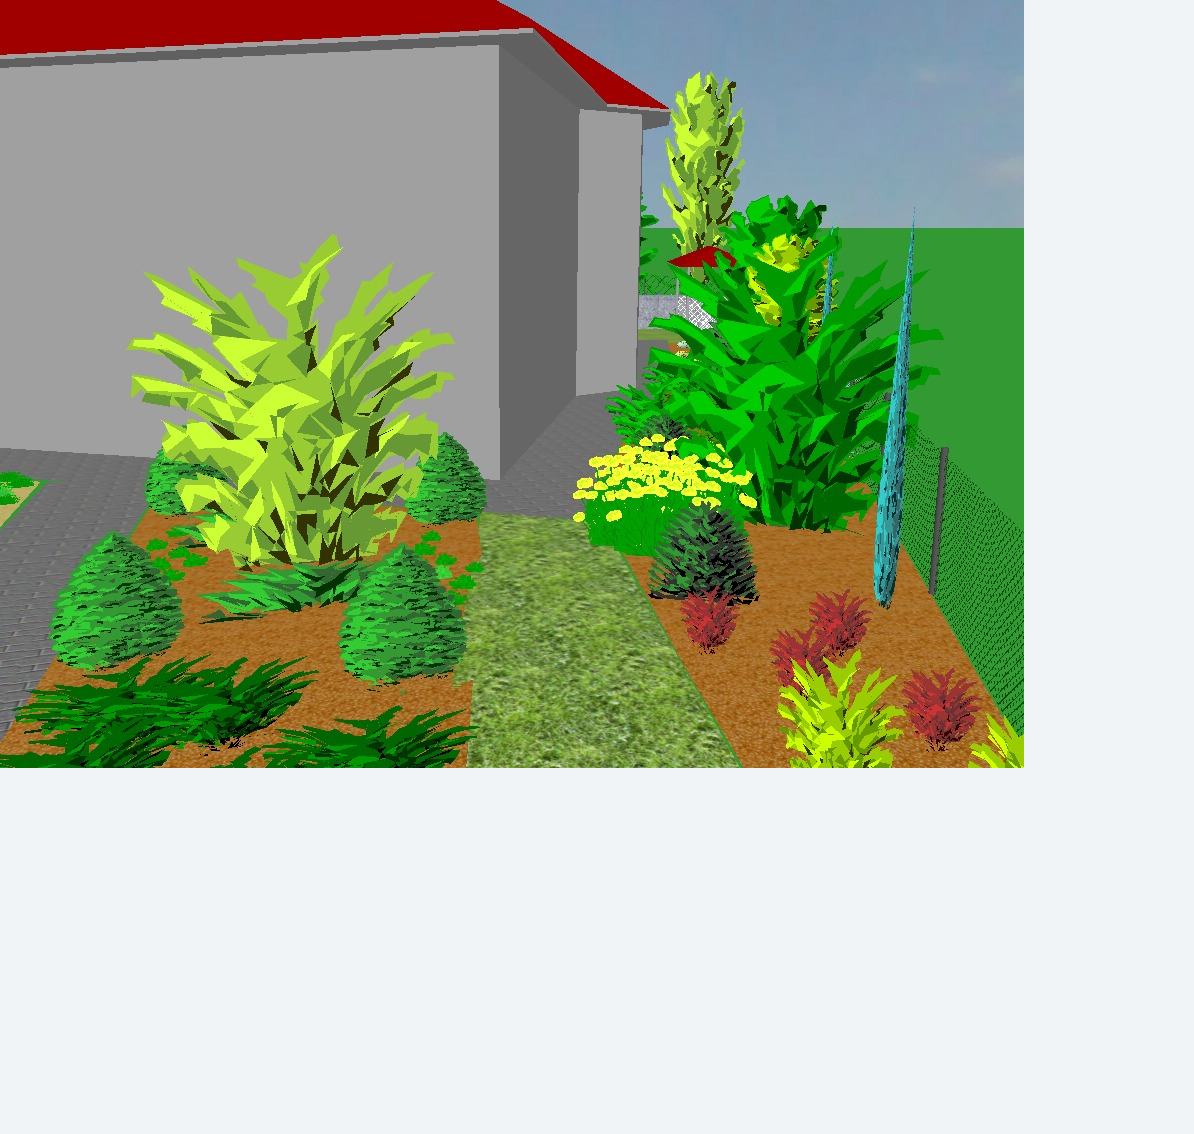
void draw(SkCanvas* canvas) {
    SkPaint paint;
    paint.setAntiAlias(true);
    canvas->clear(0xFFF0F4F7);
    canvas->drawImageRect(SkImages::DeferredFromEncodedData(SkData::MakeFromFileName("img1.png")), SkRect::MakeXYWH(0, 0, 1024, 768), SkSamplingOptions());
}
